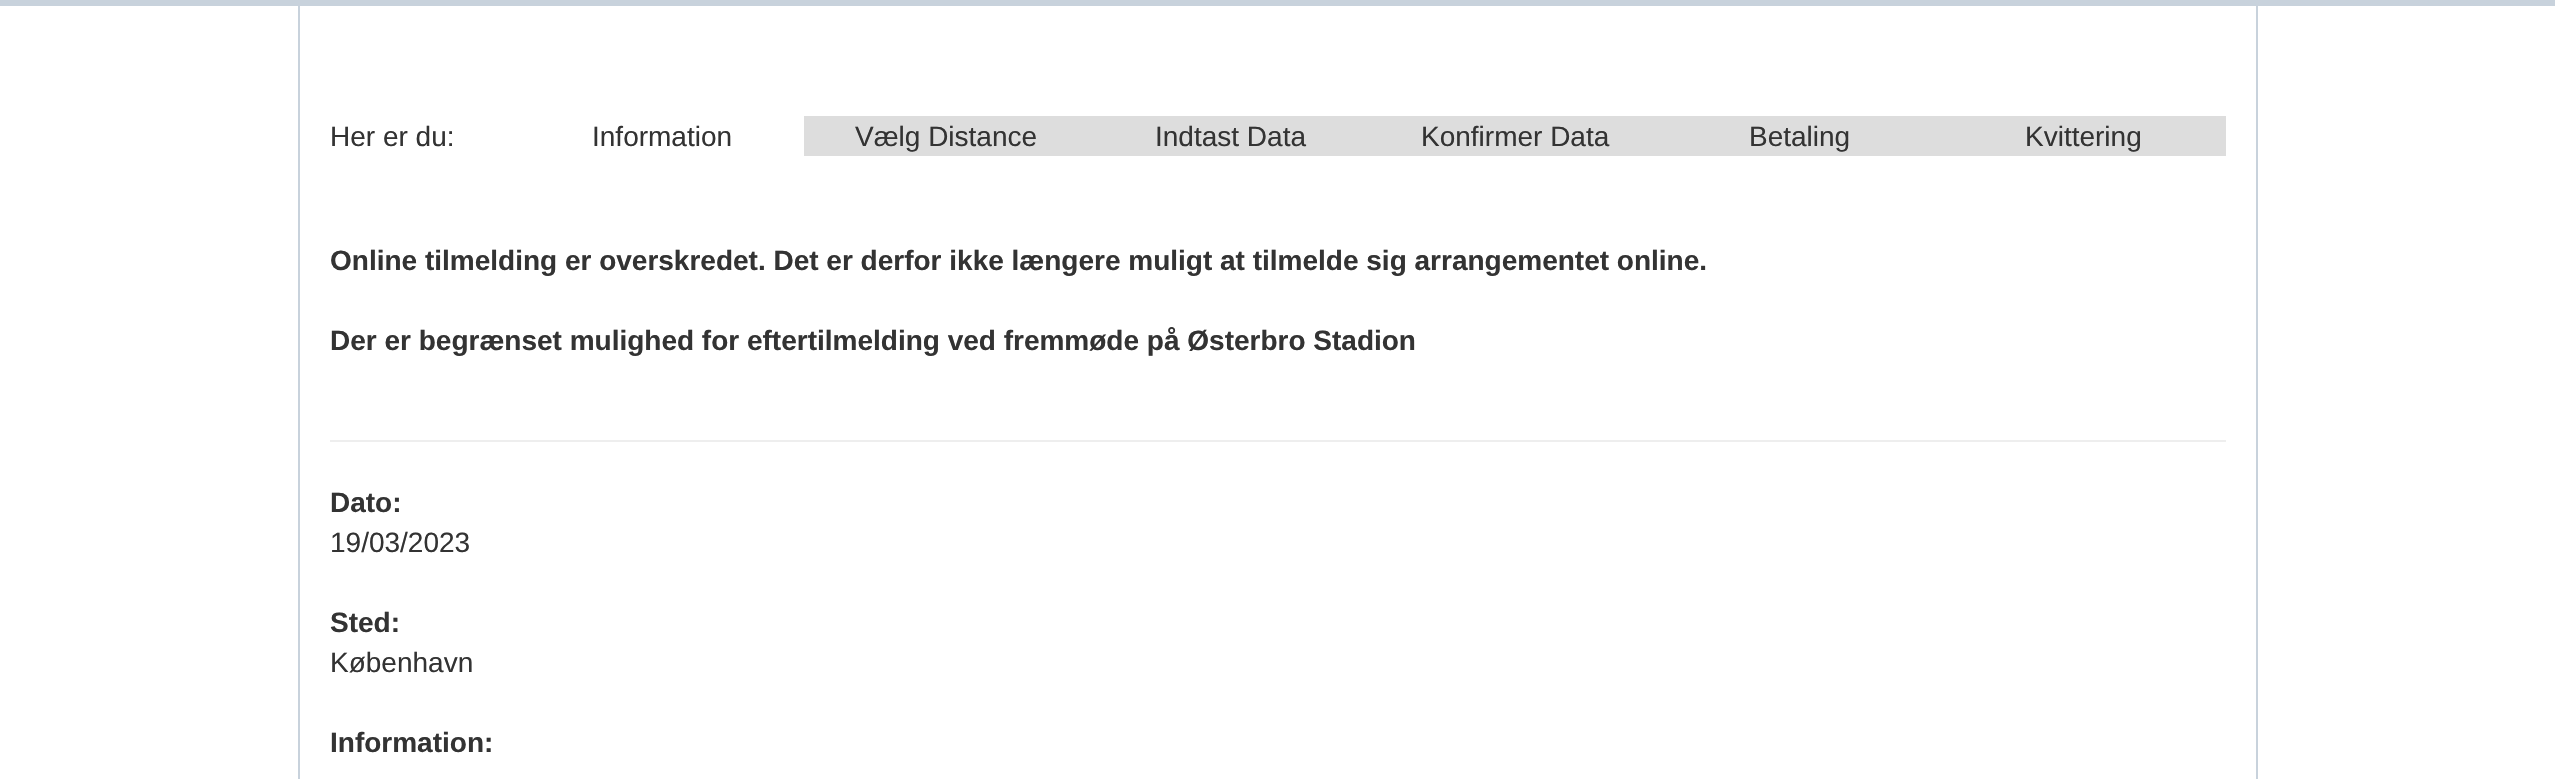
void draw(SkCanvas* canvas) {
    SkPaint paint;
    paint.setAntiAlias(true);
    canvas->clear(0xFFFFFFFF);
    paint.setColor(0xFFC8D2DC);
    canvas->drawRect(SkRect::MakeXYWH(0, 0, 2555, 6), paint);
    canvas->drawRect(SkRect::MakeXYWH(2256, 6, 2, 773), paint);
    canvas->drawRect(SkRect::MakeXYWH(298, 6, 2, 773), paint);
    SkFont font1(fontMgr->matchFamilyStyle("Liberation Sans", SkFontStyle::Normal()), 28);
    font1.setSubpixel(true);
    paint.setColor(0xFF333333);
    canvas->drawString("Her er du:", 330, 146, font1, paint);
    canvas->drawString("Information", 592, 146, font1, paint);
    paint.setColor(0xFFDDDDDD);
    canvas->drawRect(SkRect::MakeXYWH(804, 116, 1422, 40), paint);
    paint.setColor(0xFF333333);
    canvas->drawString("Vælg Distance", 855, 146, font1, paint);
    canvas->drawString("Indtast Data", 1155, 146, font1, paint);
    canvas->drawString("Konfirmer Data", 1421, 146, font1, paint);
    canvas->drawString("Betaling", 1749, 146, font1, paint);
    canvas->drawString("Kvittering", 2025, 146, font1, paint);
    SkFont font2(fontMgr->matchFamilyStyle("Liberation Sans", SkFontStyle::Bold()), 28);
    font2.setSubpixel(true);
    canvas->drawString("Online tilmelding er overskredet. Det er derfor ikke længere muligt at tilmelde sig arrangementet online.", 330, 270, font2, paint);
    canvas->drawString("Der er begrænset mulighed for eftertilmelding ved fremmøde på Østerbro Stadion", 330, 350, font2, paint);
    paint.setColor(0xFFEEEEEE);
    canvas->drawRect(SkRect::MakeXYWH(330, 440, 1896, 2), paint);
    paint.setColor(0xFF333333);
    canvas->drawString("Dato:", 330, 512, font2, paint);
    canvas->drawString("19/03/2023", 330, 552, font1, paint);
    canvas->drawString("Sted:", 330, 632, font2, paint);
    canvas->drawString("København", 330, 672, font1, paint);
    canvas->drawString("Information:", 330, 752, font2, paint);
}
